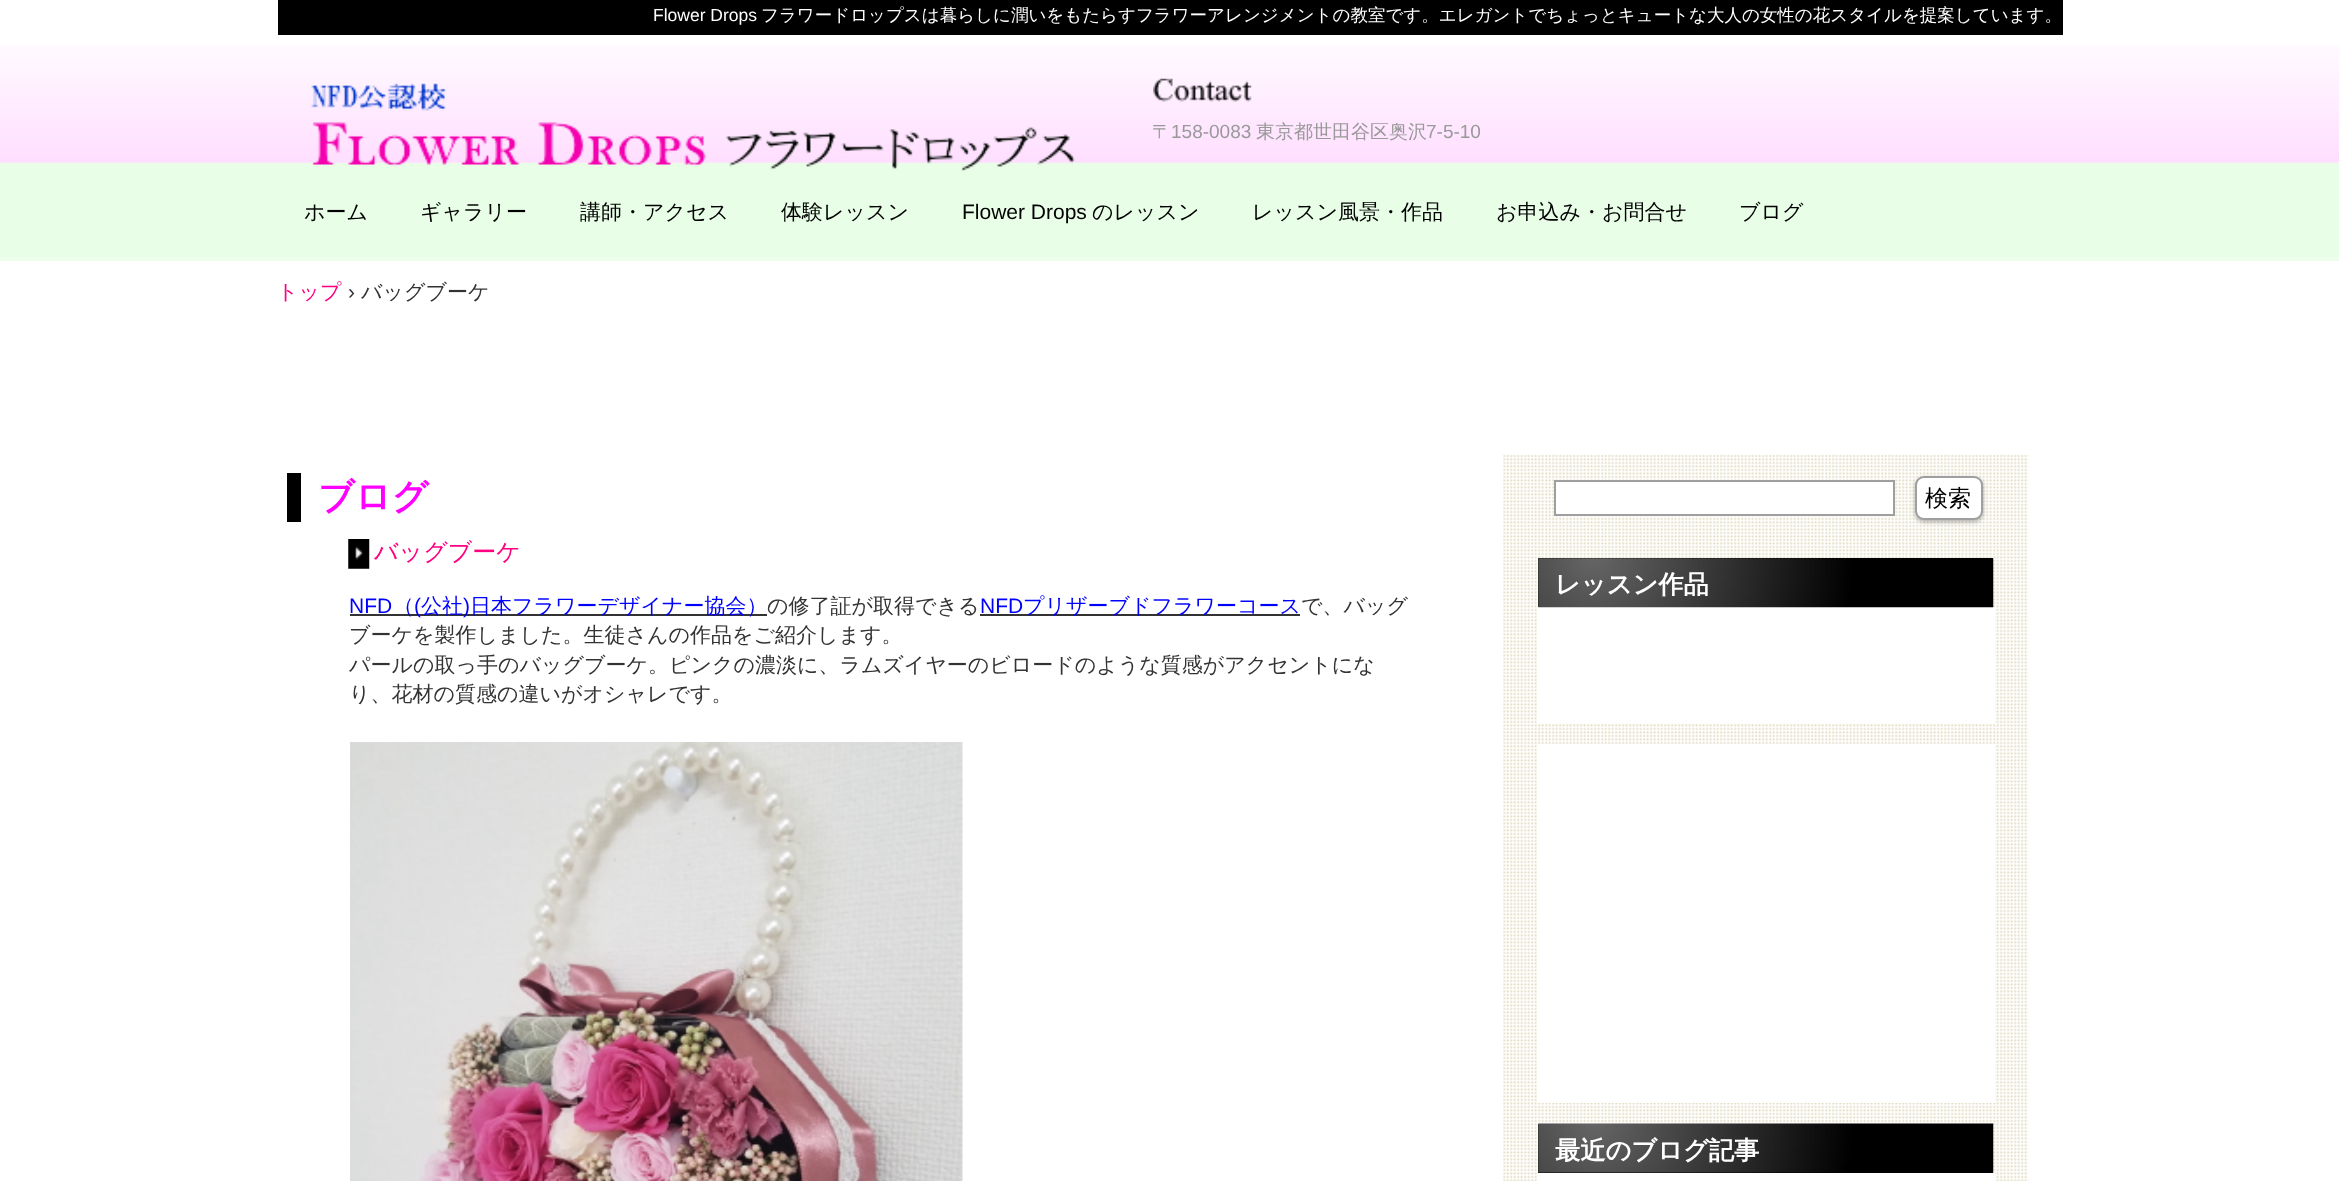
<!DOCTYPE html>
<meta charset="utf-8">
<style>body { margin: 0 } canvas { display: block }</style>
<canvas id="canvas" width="2339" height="1181"></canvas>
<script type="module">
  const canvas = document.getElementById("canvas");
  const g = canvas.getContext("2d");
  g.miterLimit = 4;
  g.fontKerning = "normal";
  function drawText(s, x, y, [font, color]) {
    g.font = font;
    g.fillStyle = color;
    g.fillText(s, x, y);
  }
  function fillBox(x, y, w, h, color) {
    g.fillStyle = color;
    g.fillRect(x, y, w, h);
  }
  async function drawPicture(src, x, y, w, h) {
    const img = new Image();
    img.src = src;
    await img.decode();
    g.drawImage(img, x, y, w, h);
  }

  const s1 = ["17.5px Liberation Sans", "#FFFFFF"];
  const s2 = ["500 17.5px WenQuanYi Zen Hei", "#FFFFFF"];
  const s3 = ["500 19px WenQuanYi Zen Hei", "#999999"];
  const s4 = ["19px Liberation Sans", "#999999"];
  const s5 = ["500 21px WenQuanYi Zen Hei", "#000000"];
  const s6 = ["21px Liberation Sans", "#000000"];
  const s7 = ["500 21px WenQuanYi Zen Hei", "#FF0080"];
  const s8 = ["21px Liberation Sans", "#333333"];
  const s9 = ["500 21px WenQuanYi Zen Hei", "#333333"];
  const s10 = ["bold 36px WenQuanYi Zen Hei", "#FF00FF"];
  const s11 = ["500 24px WenQuanYi Zen Hei", "#FF0080"];
  const s12 = ["21px Liberation Sans", "#0000FF"];
  const s13 = ["500 21px WenQuanYi Zen Hei", "#0000FF"];
  const s14 = ["500 23px WenQuanYi Zen Hei", "#000000"];
  const s15 = ["bold 25.25px WenQuanYi Zen Hei", "#FFFFFF"];

  fillBox(0, 0, 2339, 1181, "#FFFFFF");
  await drawPicture("pic1.png", 0, 46, 2339, 118);
  fillBox(278, 0, 1785, 35, "#000000");
  drawText("Flower Drops", 653, 21, s1);
  drawText("フラワードロップスは暮らしに潤いをもたらすフラワーアレンジメントの教室です。エレガントでちょっとキュートな大人の女性の花スタイルを提案しています。", 761, 21, s2);
  await drawPicture("pic4.png", 0, 162, 2339, 99);
  await drawPicture("pic2.png", 311, 83, 764, 89);
  await drawPicture("pic3.png", 1153, 78, 99, 24);
  drawText("〒", 1152, 138, s3);
  drawText("158-0083", 1171, 138, s4);
  drawText("東京都世田谷区奥沢", 1256, 138, s3);
  drawText("7-5-10", 1426, 138, s4);
  drawText("ホーム", 304, 219, s5);
  drawText("ギャラリー", 420, 219, s5);
  drawText("講師・アクセス", 580, 219, s5);
  drawText("体験レッスン", 781, 219, s5);
  drawText("Flower Drops", 962, 219, s6);
  drawText("のレッスン", 1092, 219, s5);
  drawText("レッスン風景・作品", 1252, 219, s5);
  drawText("お申込み・お問合せ", 1496, 219, s5);
  drawText("ブログ", 1739, 219, s5);
  drawText("トップ", 277, 299, s7);
  drawText("›", 348, 299, s8);
  drawText("バッグブーケ", 361, 299, s9);
  fillBox(287, 473, 14, 49, "#000000");
  drawText("ブログ", 318, 509, s10);
  await drawPicture("pic5.png", 348, 539, 22, 30);
  drawText("バッグブーケ", 374, 560, s11);
  drawText("NFD", 349, 613, s12);
  fillBox(350, 614, 417, 2, "#333333");
  drawText("（", 393, 613, s13);
  drawText("(", 414, 613, s12);
  drawText("公社", 421, 613, s13);
  drawText(")", 463, 613, s12);
  drawText("日本フラワーデザイナー協会）", 470, 613, s13);
  drawText("の修了証が取得できる", 767, 613, s9);
  drawText("NFD", 980, 613, s12);
  fillBox(980, 614, 320, 2, "#333333");
  drawText("プリザーブドフラワーコース", 1023, 613, s13);
  drawText("で、バッグ", 1301, 613, s9);
  drawText("ブーケを製作しました。生徒さんの作品をご紹介します。", 349, 642, s9);
  drawText("パールの取っ手のバッグブーケ。ピンクの濃淡に、ラムズイヤーのビロードのような質感がアクセントにな", 349, 672, s9);
  drawText("り、花材の質感の違いがオシャレです。", 349, 701, s9);
  await drawPicture("pic6.png", 350, 742, 613, 439);
  await drawPicture("pic7.png", 1503, 455, 526, 726);
  g.fillStyle = "#FFFFFF";
  g.beginPath();
  g.rect(1555, 481, 339, 34);
  g.fill();
  g.strokeStyle = "#9F9F9F";
  g.lineWidth = 2;
  g.stroke();
  g.fillStyle = "rgba(0, 0, 0, 0.3)";
  g.filter = "blur(2px)";
  g.beginPath();
  g.roundRect(1915, 478, 68, 44, 9);
  g.fill();
  g.filter = "none";
  g.fillStyle = "#FFFFFF";
  g.beginPath();
  g.roundRect(1916, 477, 66, 42, 8);
  g.fill();
  g.stroke();
  drawText("検索", 1925, 506, s14);
  fillBox(1538, 558, 455, 49, "#000000");
  fillBox(1537, 607, 458, 116, "#FFFFFF");
  await drawPicture("pic8.png", 1538, 558, 456, 50);
  drawText("レッスン作品", 1555, 593, s15);
  fillBox(1537, 744, 458, 359, "#FFFFFF");
  fillBox(1538, 1124, 455, 49, "#000000");
  await drawPicture("pic9.png", 1538, 1123, 456, 50);
  drawText("最近のブログ記事", 1555, 1159, s15);
  fillBox(1537, 1173, 458, 8, "#FFFFFF");
</script>
